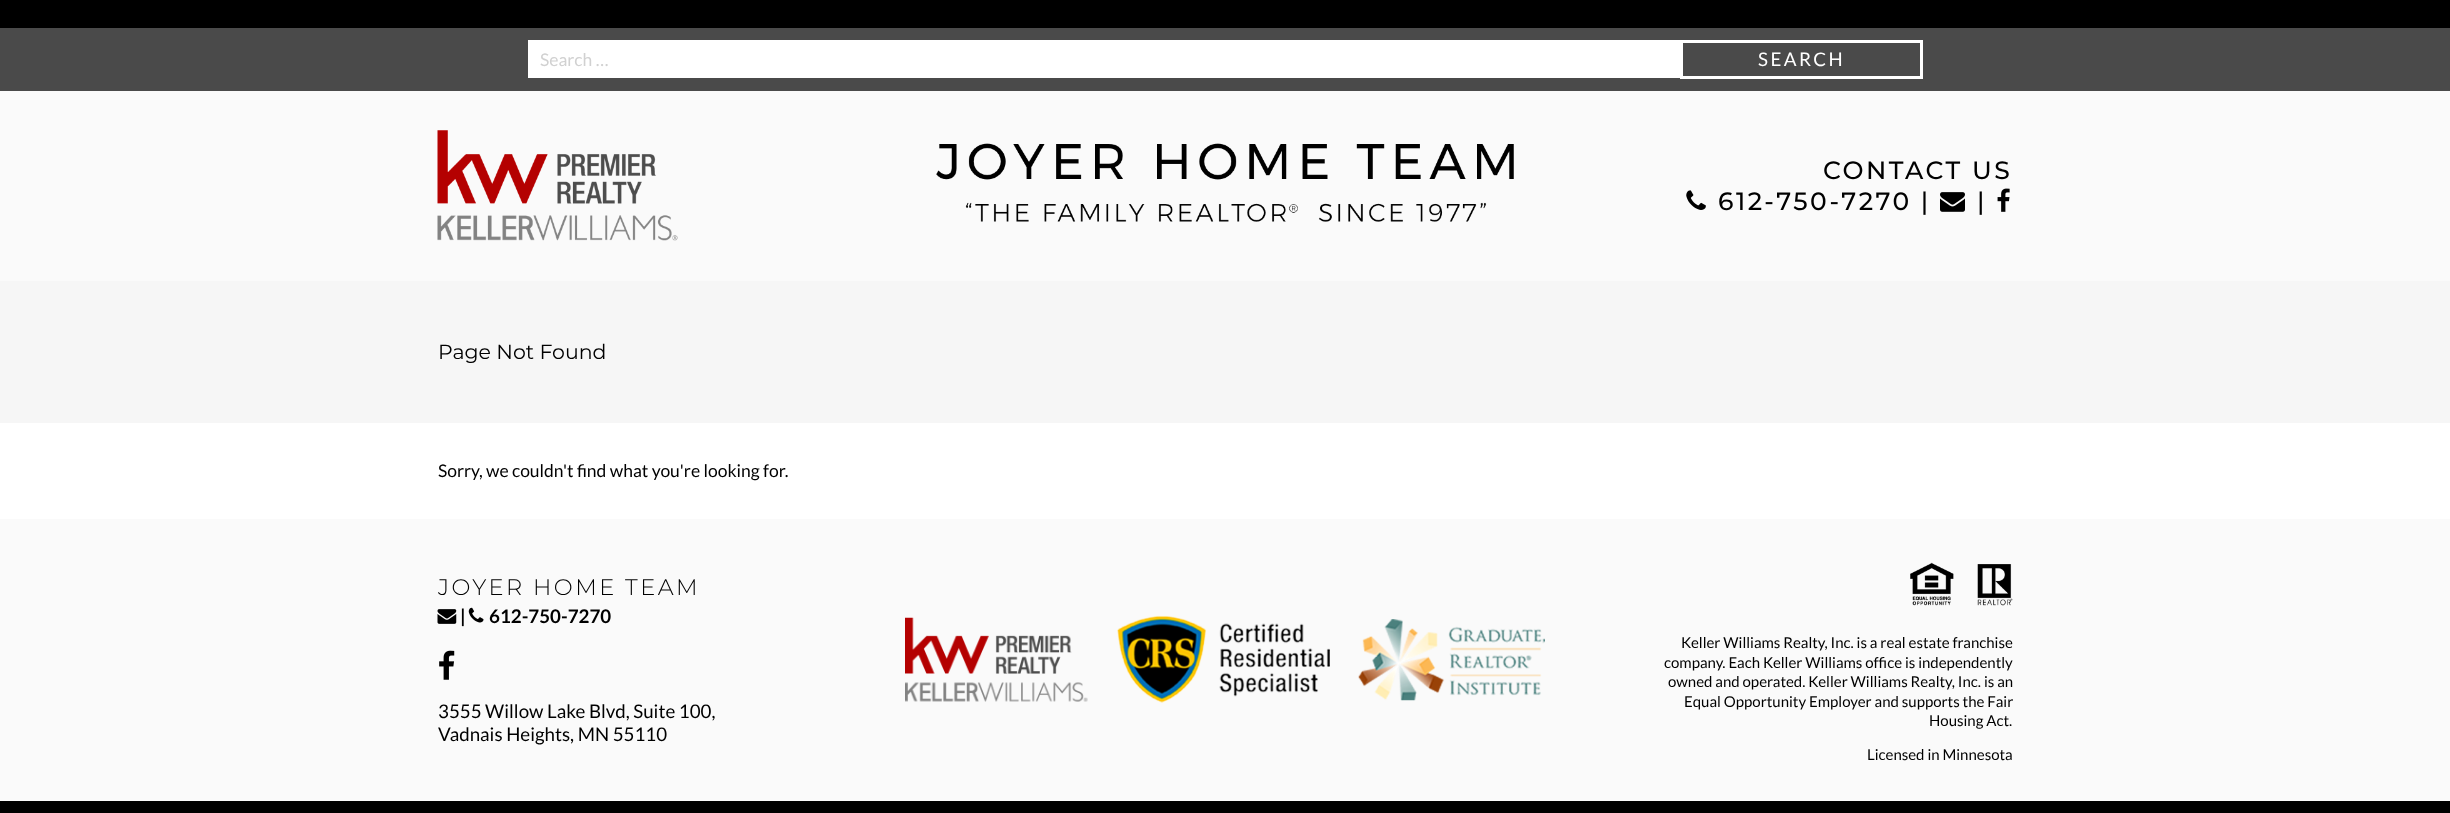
<!DOCTYPE html>
<meta charset="utf-8">
<style>body { margin: 0 } canvas { display: block }</style>
<canvas id="canvas" width="2450" height="813"></canvas>
<script type="module">
  const canvas = document.getElementById("canvas");
  const g = canvas.getContext("2d");
  g.miterLimit = 4;
  g.fontKerning = "normal";
  function drawText(s, x, y, [font, color]) {
    g.font = font;
    g.fillStyle = color;
    g.fillText(s, x, y);
  }
  function fillBox(x, y, w, h, color) {
    g.fillStyle = color;
    g.fillRect(x, y, w, h);
  }
  async function drawPicture(src, x, y, w, h) {
    const img = new Image();
    img.src = src;
    await img.decode();
    g.drawImage(img, x, y, w, h);
  }

  const s1 = ["17.5px Lato", "#D1D1D1"];
  const s2 = ["18.75px Lato", "#FFFFFF"];
  const s3 = ["500 25px Montserrat", "#000000"];
  const s4 = ["20.5px Montserrat", "#000000"];
  const s5 = ["17.5px Lato", "#000000"];
  const s6 = ["300 22.5px Montserrat", "#000000"];
  const s7 = ["bold 18.75px Lato", "#000000"];
  const s8 = ["18.75px Lato", "#000000"];
  const s9 = ["15px Lato", "#000000"];

  fillBox(0, 0, 2450, 813, "#FFFFFF");
  fillBox(0, 0, 2450, 28, "#000000");
  fillBox(0, 28, 2450, 63, "#4A4A4A");
  fillBox(528, 40, 1152, 38, "#FFFFFF");
  drawText("Search …", 540, 66, s1);
  g.strokeStyle = "#FFFFFF";
  g.lineWidth = 3;
  g.strokeRect(1681.5, 41.5, 240, 36);
  g.letterSpacing = "2.5px";
  drawText("SEARCH", 1758, 66, s2);
  fillBox(0, 91, 2450, 190, "#FAFAFA");
  await drawPicture("pic1.png", 437, 130, 241, 111);
  await drawPicture("pic2.png", 936, 143, 578, 79);
  drawText("CONTACT US", 1823, 179, s3);
  await drawPicture("pic3.png", 1686, 190, 20, 20);
  drawText("612-750-7270 |", 1718, 210, s3);
  await drawPicture("pic4.png", 1940, 192, 25, 20);
  drawText("|", 1977, 210, s3);
  await drawPicture("pic5.png", 1997, 188, 13, 24);
  fillBox(0, 281, 2450, 142, "#F6F6F6");
  g.letterSpacing = "0px";
  drawText("Page Not Found", 438, 359, s4);
  drawText("Sorry, we couldn't find what you're looking for.", 438, 477, s5);
  fillBox(0, 519, 2450, 282, "#FAFAFA");
  g.letterSpacing = "2.5px";
  drawText("JOYER HOME TEAM", 438, 595, s6);
  await drawPicture("pic6.png", 437, 609, 20, 15);
  g.letterSpacing = "0px";
  drawText("|", 460, 623, s7);
  await drawPicture("pic7.png", 468, 607, 16, 16);
  drawText("612-750-7270", 489, 623, s7);
  await drawPicture("pic8.png", 439, 650, 16, 30);
  drawText("3555 Willow Lake Blvd, Suite 100,", 438, 718, s8);
  drawText("Vadnais Heights, MN 55110", 438, 741, s8);
  await drawPicture("pic9.png", 905, 617, 183, 85);
  await drawPicture("pic10.png", 1117, 615, 213, 88);
  await drawPicture("pic11.png", 1358, 619, 187, 82);
  await drawPicture("pic12.png", 1910, 562, 44, 44);
  await drawPicture("pic13.png", 1977, 564, 36, 42);
  drawText("Keller Williams Realty, Inc. is a real estate franchise", 1681, 648, s9);
  drawText("company. Each Keller Williams office is independently", 1664, 668, s9);
  drawText("owned and operated. Keller Williams Realty, Inc. is an", 1668, 687, s9);
  drawText("Equal Opportunity Employer and supports the Fair", 1684, 707, s9);
  drawText("Housing Act.", 1929, 726, s9);
  drawText("Licensed in Minnesota", 1867, 760, s9);
  fillBox(0, 801, 2450, 12, "#000000");
</script>
